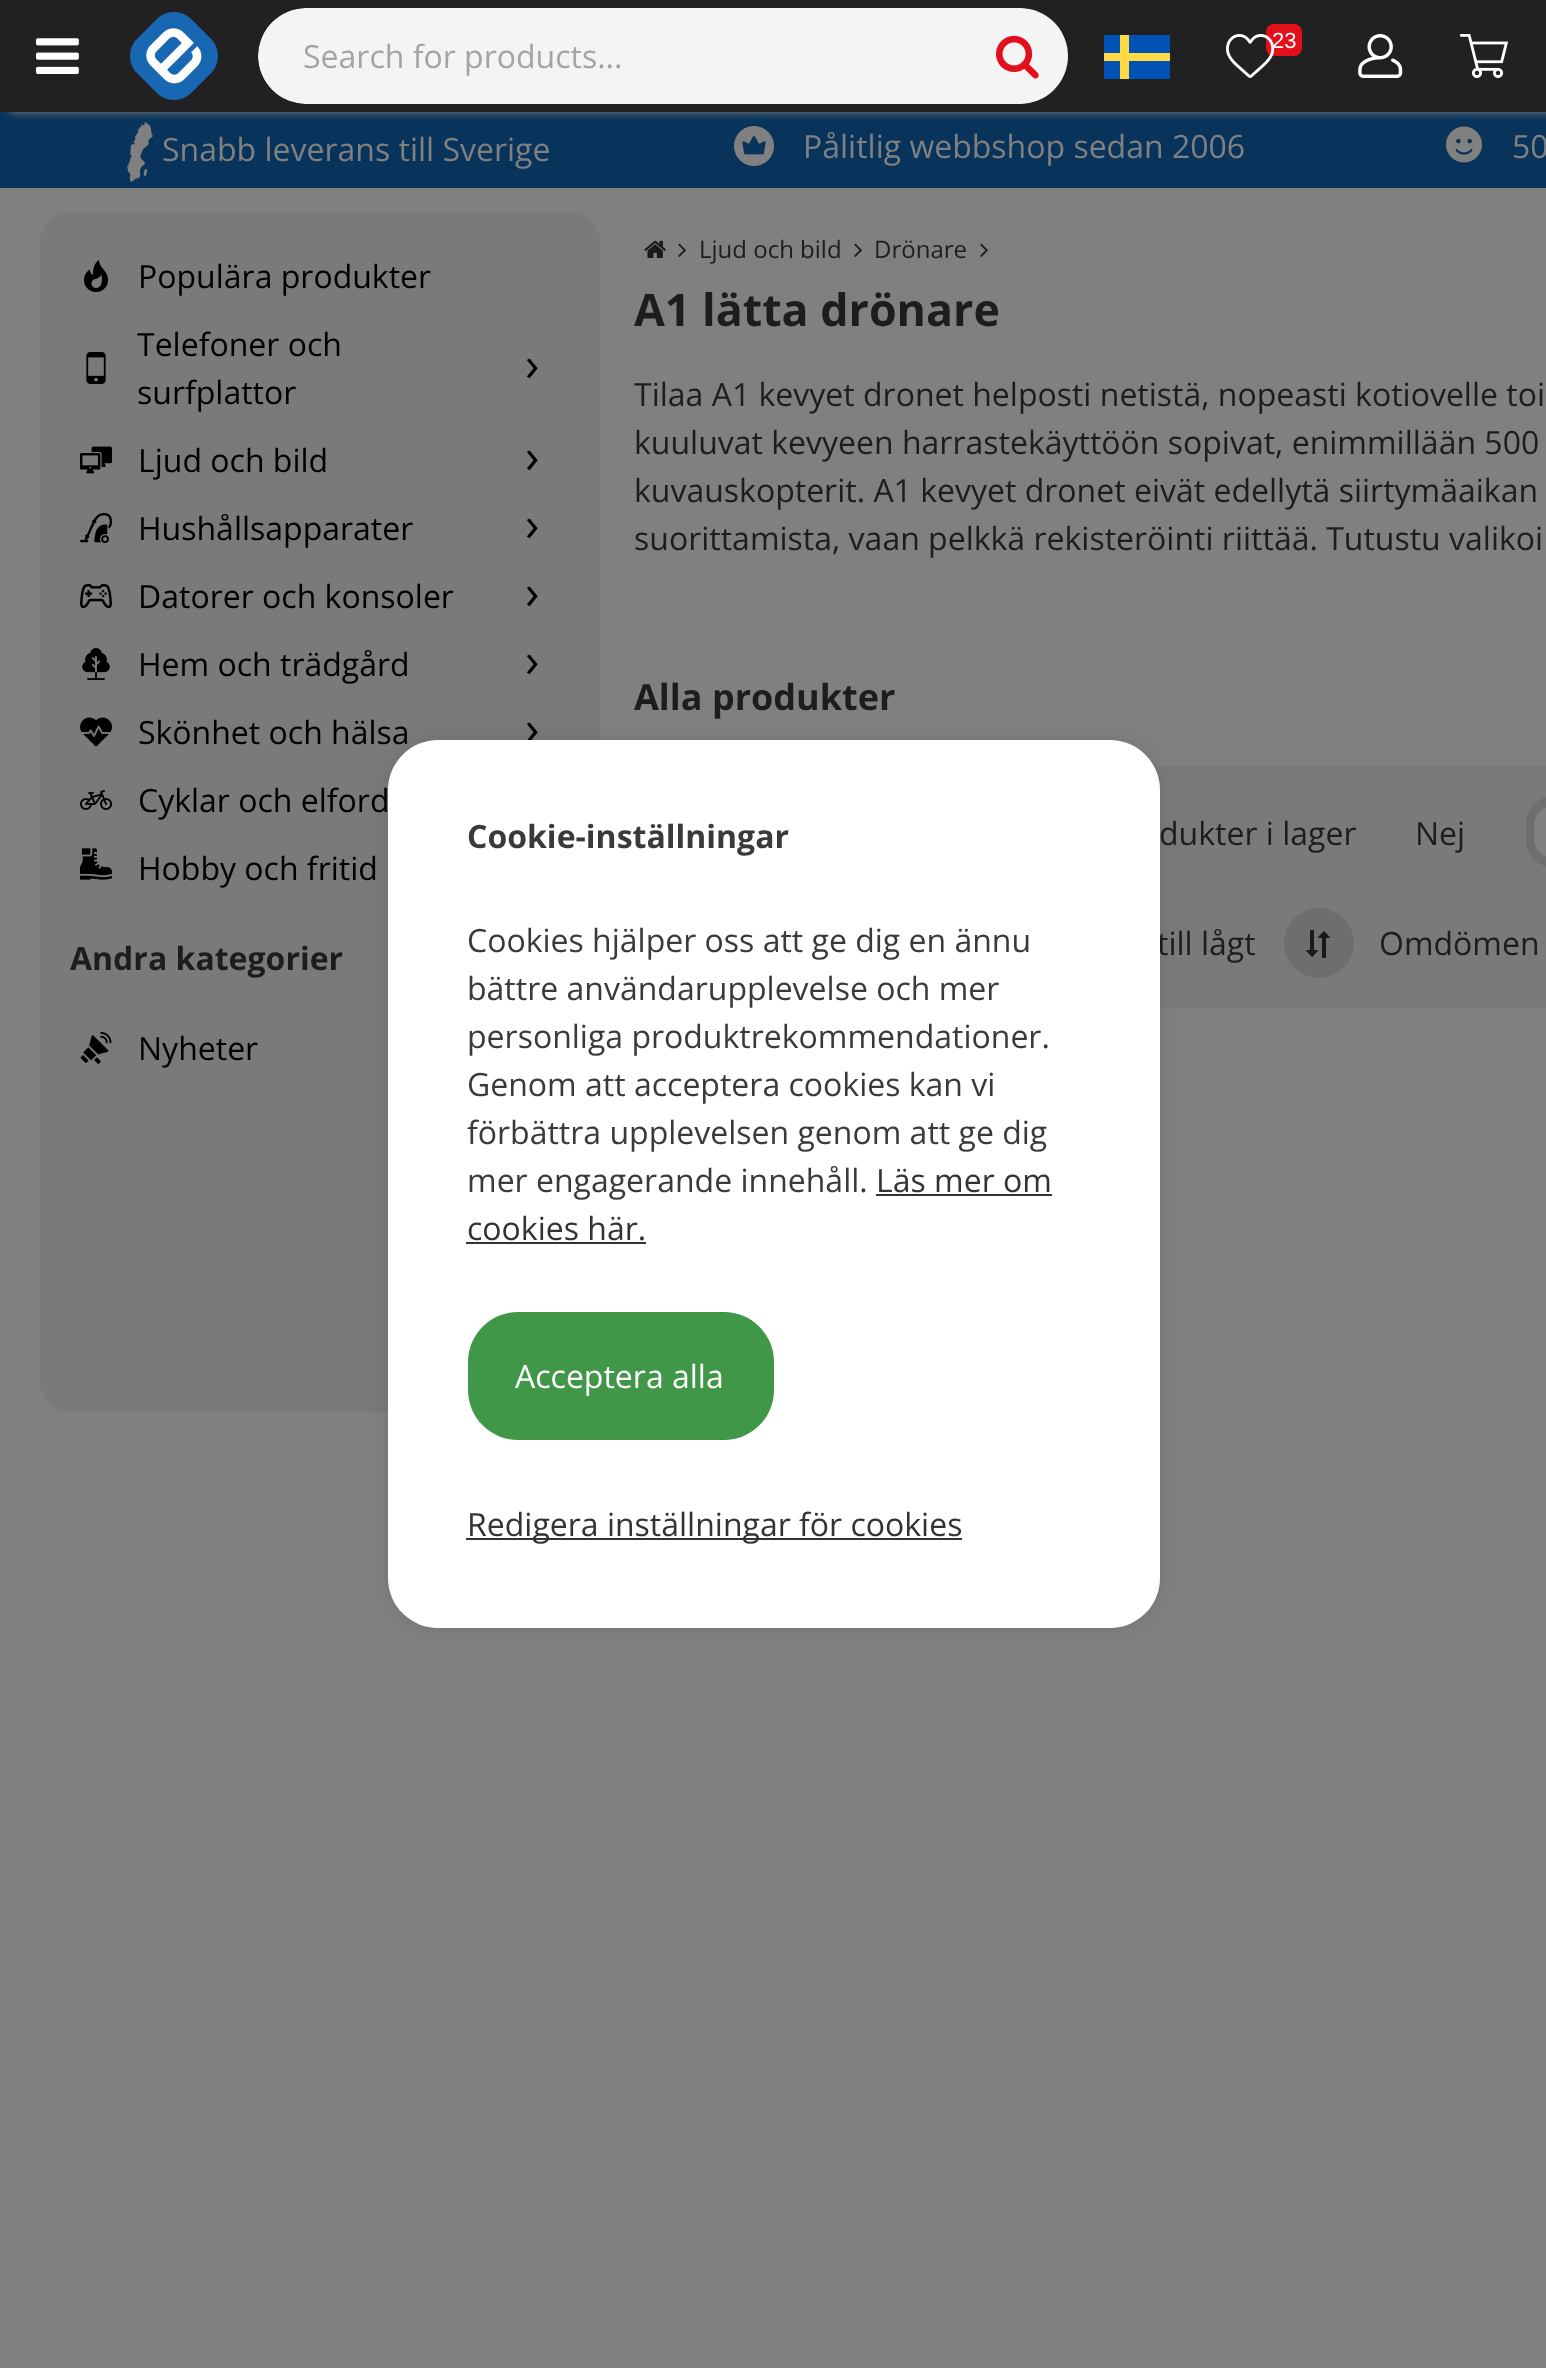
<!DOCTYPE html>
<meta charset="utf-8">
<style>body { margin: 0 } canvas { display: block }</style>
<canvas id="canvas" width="1546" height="2368"></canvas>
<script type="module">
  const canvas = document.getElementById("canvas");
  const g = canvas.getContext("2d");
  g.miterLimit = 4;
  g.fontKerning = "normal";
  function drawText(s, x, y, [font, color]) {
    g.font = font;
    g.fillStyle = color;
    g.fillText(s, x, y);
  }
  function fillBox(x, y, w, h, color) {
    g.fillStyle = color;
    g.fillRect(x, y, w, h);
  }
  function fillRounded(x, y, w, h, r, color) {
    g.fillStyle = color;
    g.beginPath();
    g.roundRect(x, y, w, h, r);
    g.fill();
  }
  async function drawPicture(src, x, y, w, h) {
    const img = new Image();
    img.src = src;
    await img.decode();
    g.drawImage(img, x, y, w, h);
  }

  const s1 = ["32px Open Sans", "#A4A4A4"];
  const s2 = ["22px Liberation Sans", "#FFFFFF"];
  const s3 = ["32px Open Sans", "#808080"];
  const s4 = ["32px Open Sans", "#000000"];
  const s5 = ["48px Open Sans", "#000000"];
  const s6 = ["bold 32px Open Sans", "#1D1D1D"];
  const s7 = ["24px Open Sans", "#1D1D1D"];
  const s8 = ["bold 44.75px Open Sans", "#1D1D1D"];
  const s9 = ["32px Open Sans", "#1D1D1D"];
  const s10 = ["bold 36px Open Sans", "#1D1D1D"];
  const s11 = ["bold 32px Open Sans", "#3A3A3A"];
  const s12 = ["32px Open Sans", "#3A3A3A"];
  const s13 = ["32px Open Sans", "#333333"];
  const s14 = ["32px Open Sans", "#FFFFFF"];

  fillBox(0, 0, 1546, 2368, "#808080");
  fillBox(0, 112, 1546, 76, "#08335B");
  await drawPicture("pic7.png", 127, 122, 26, 60);
  await drawPicture("pic8.png", 734, 126, 40, 40);
  await drawPicture("pic9.png", 1446, 126, 36, 37);
  g.fillStyle = "#888888";
  g.filter = "blur(5px)";
  g.beginPath();
  g.rect(10, 0, 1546, 112);
  g.fill();
  g.filter = "none";
  fillBox(0, 0, 1546, 112, "#212121");
  await drawPicture("pic1.png", 36, 38, 43, 36);
  await drawPicture("pic2.png", 130, 12, 88, 88);
  g.save();
  g.beginPath();
  g.roundRect(258, 8, 810, 96, 48);
  g.clip();
  fillRounded(258, 8, 812, 96, 48, "#F4F4F4");
  g.restore();
  drawText("Search for products...", 303, 68, s1);
  await drawPicture("pic3.png", 996, 35, 43, 44);
  fillBox(1104, 35, 66, 44, "#0052B4");
  g.fillStyle = "#FFDA44";
  g.beginPath();
  g.moveTo(1129, 35);
  g.lineTo(1120, 35);
  g.lineTo(1120, 53);
  g.lineTo(1104, 53);
  g.lineTo(1104, 61);
  g.lineTo(1120, 61);
  g.lineTo(1120, 79);
  g.lineTo(1129, 79);
  g.lineTo(1129, 61);
  g.lineTo(1170, 61);
  g.lineTo(1170, 53);
  g.lineTo(1129, 53);
  g.closePath();
  g.fill();
  fillRounded(1266, 24, 36, 32, 8, "#E3101B");
  drawText("23", 1272, 48, s2);
  await drawPicture("pic4.png", 1226, 34, 49, 44);
  await drawPicture("pic5.png", 1358, 34, 45, 44);
  await drawPicture("pic6.png", 1460, 34, 49, 44);
  drawText("Snabb leverans till Sverige", 162, 161, s3);
  drawText("Pålitlig webbshop sedan 2006", 803, 158, s3);
  drawText("50", 1512, 158, s3);
  fillRounded(40, 212, 560, 1200, 30, "#7A7A7A");
  await drawPicture("pic10.png", 84, 260, 24, 32);
  drawText("Populära produkter", 138, 288, s4);
  drawText("Telefoner och", 137, 356, s4);
  await drawPicture("pic11.png", 86, 352, 20, 32);
  drawText("surfplattor", 137, 404, s4);
  drawText("›", 525, 381, s5);
  await drawPicture("pic12.png", 80, 446, 32, 28);
  drawText("Ljud och bild", 138, 472, s4);
  drawText("›", 525, 473, s5);
  await drawPicture("pic13.png", 80, 512, 32, 31);
  drawText("Hushållsapparater", 138, 540, s4);
  drawText("›", 525, 541, s5);
  await drawPicture("pic14.png", 80, 583, 32, 26);
  drawText("Datorer och konsoler", 138, 608, s4);
  drawText("›", 525, 609, s5);
  await drawPicture("pic15.png", 82, 648, 28, 32);
  drawText("Hem och trädgård", 138, 676, s4);
  drawText("›", 525, 677, s5);
  await drawPicture("pic16.png", 80, 717, 32, 30);
  drawText("Skönhet och hälsa", 138, 744, s4);
  drawText("›", 525, 745, s5);
  await drawPicture("pic17.png", 80, 790, 32, 20);
  drawText("Cyklar och elford", 138, 812, s4);
  await drawPicture("pic18.png", 80, 848, 32, 32);
  drawText("Hobby och fritid", 138, 880, s4);
  drawText("Andra kategorier", 70, 970, s6);
  await drawPicture("pic19.png", 80, 1032, 32, 32);
  drawText("Nyheter", 138, 1060, s4);
  await drawPicture("pic20.png", 644, 240, 22, 18);
  await drawPicture("pic21.png", 678, 243, 8, 14);
  drawText("Ljud och bild", 699, 258, s7);
  await drawPicture("pic21.png", 854, 243, 8, 14);
  drawText("Drönare", 874, 258, s7);
  await drawPicture("pic21.png", 980, 243, 8, 14);
  drawText("A1 lätta drönare", 634, 326, s8);
  drawText("Tilaa A1 kevyet dronet helposti netistä, nopeasti kotiovelle toi", 634, 406, s9);
  drawText("kuuluvat kevyeen harrastekäyttöön sopivat, enimmillään 500", 634, 454, s9);
  drawText("kuvauskopterit. A1 kevyet dronet eivät edellytä siirtymäaikan", 634, 502, s9);
  drawText("suorittamista, vaan pelkkä rekisteröinti riittää. Tutustu valikoi", 634, 550, s9);
  drawText("Alla produkter", 634, 710, s10);
  fillBox(1153, 766, 393, 242, "#7A7A7A");
  drawText("dukter i lager", 1159, 845, s9);
  fillRounded(1526, 796, 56, 72, 36, "#6E6E6E");
  drawText("Nej", 1415, 845, s9);
  fillRounded(1534, 806, 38, 52, 26, "#808080");
  drawText("till lågt", 1157, 955, s9);
  g.fillStyle = "#6E6E6E";
  g.beginPath();
  g.arc(1319, 943, 35, 0, Math.PI * 2);
  g.fill();
  await drawPicture("pic22.png", 1306, 930, 12, 27);
  await drawPicture("pic23.png", 1318, 931, 12, 27);
  drawText("Omdömen", 1379, 955, s9);
  g.fillStyle = "rgba(0, 0, 0, 0.1)";
  g.filter = "blur(10px)";
  g.beginPath();
  g.roundRect(388, 740, 772, 888, 50);
  g.fill();
  g.filter = "none";
  fillRounded(388, 740, 772, 888, 50, "#FFFFFF");
  drawText("Cookie-inställningar", 467, 848, s11);
  drawText("Cookies hjälper oss att ge dig en ännu", 467, 952, s12);
  drawText("bättre användarupplevelse och mer", 467, 1000, s12);
  drawText("personliga produktrekommendationer.", 467, 1048, s12);
  drawText("Genom att acceptera cookies kan vi", 467, 1096, s12);
  drawText("förbättra upplevelsen genom att ge dig", 467, 1144, s12);
  drawText("mer engagerande innehåll.", 467, 1192, s12);
  drawText("Läs mer om", 876, 1192, s13);
  fillBox(876, 1194, 176, 2, "#333333");
  drawText("cookies här.", 467, 1240, s13);
  fillBox(466, 1242, 180, 2, "#333333");
  fillRounded(468, 1312, 306, 128, 50, "#409748");
  drawText("Acceptera alla", 515, 1388, s14);
  fillBox(466, 1538, 496, 2, "#333333");
  drawText("Redigera inställningar för cookies", 467, 1536, s13);
</script>
